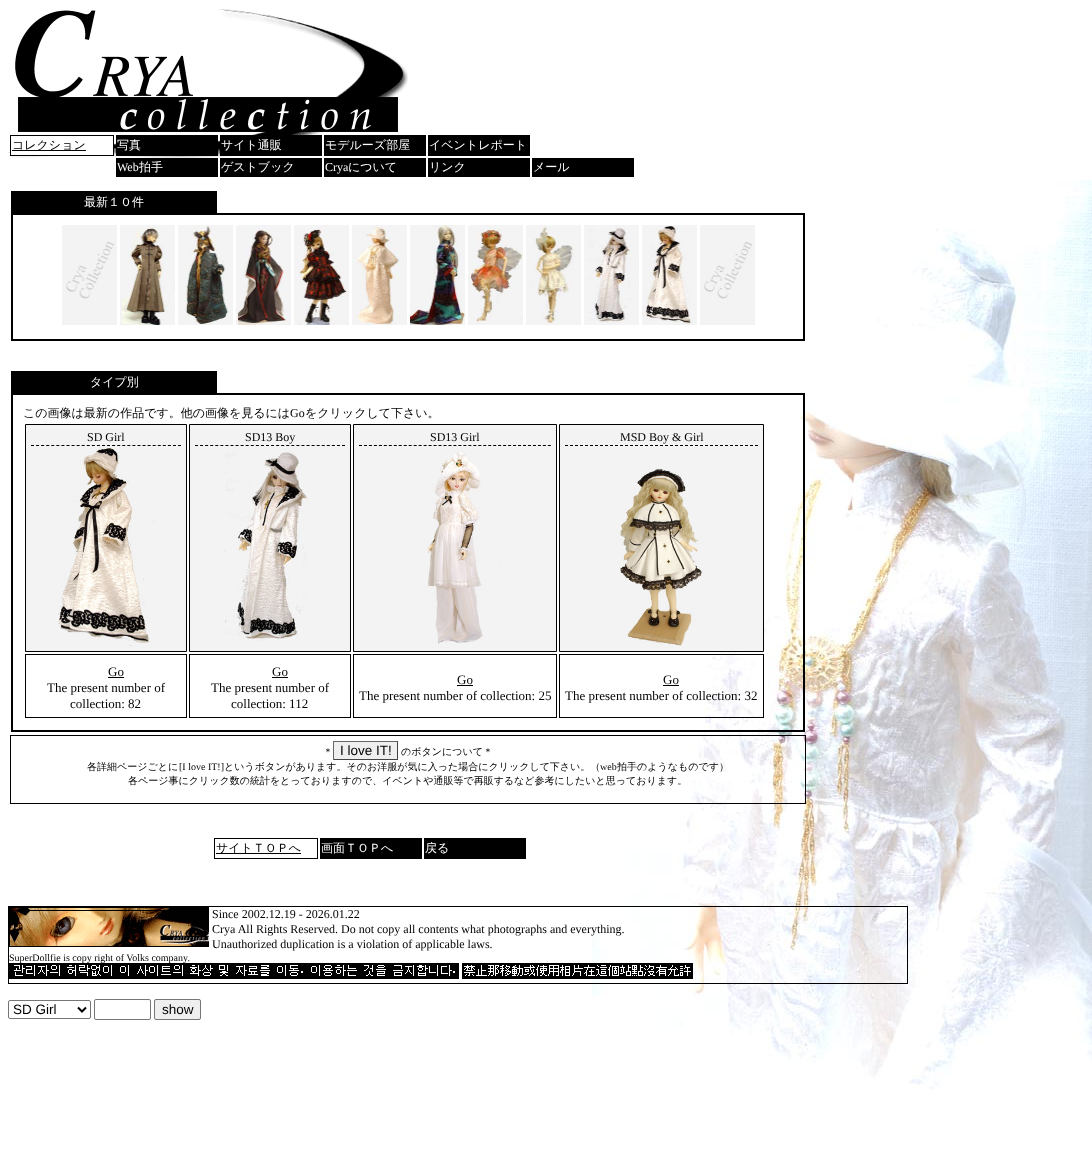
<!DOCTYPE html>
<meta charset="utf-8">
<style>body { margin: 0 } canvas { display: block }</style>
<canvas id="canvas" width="1092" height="1151"></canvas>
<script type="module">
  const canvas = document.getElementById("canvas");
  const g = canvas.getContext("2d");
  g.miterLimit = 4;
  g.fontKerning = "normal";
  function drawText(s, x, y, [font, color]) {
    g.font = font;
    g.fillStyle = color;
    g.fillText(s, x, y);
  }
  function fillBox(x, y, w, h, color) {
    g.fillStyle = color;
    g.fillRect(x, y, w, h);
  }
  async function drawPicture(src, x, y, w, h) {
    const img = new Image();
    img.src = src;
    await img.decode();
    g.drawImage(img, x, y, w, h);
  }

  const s1 = ["500 12px WenQuanYi Zen Hei", "#000000"];
  const s2 = ["500 12px WenQuanYi Zen Hei", "#FFFFFF"];
  const s3 = ["12px Liberation Serif", "#FFFFFF"];
  const s4 = ["12px Liberation Serif", "#000000"];
  const s5 = ["13px Liberation Serif", "#000000"];
  const s6 = ["500 10px WenQuanYi Zen Hei", "#000000"];
  const s7 = ["13.5px Liberation Sans", "#000000"];
  const s8 = ["10px Liberation Serif", "#000000"];

  fillBox(0, 0, 1092, 1151, "#FFFFFF");
  await drawPicture("pic1.png", 592, 180, 500, 910);
  await drawPicture("pic2.png", 15, 9, 393, 124);
  await drawPicture("pic3.png", 8, 133, 312, 25);
  fillBox(11, 143, 102, 12, "#FFFFFF");
  g.strokeStyle = "#000000";
  g.strokeRect(10.5, 135.5, 103, 20);
  fillBox(12, 150, 74, 1, "#000000");
  drawText("コレクション", 12, 149, s1);
  fillBox(116, 135, 102, 21, "#000000");
  drawText("写真", 117, 149, s2);
  fillBox(220, 135, 102, 21, "#000000");
  drawText("サイト通販", 221, 149, s2);
  fillBox(324, 135, 102, 21, "#000000");
  drawText("モデルーズ部屋", 325, 149, s2);
  fillBox(428, 135, 102, 21, "#000000");
  drawText("イベントレポート", 429, 149, s2);
  fillBox(116, 158, 102, 19, "#000000");
  drawText("Web", 117, 171, s3);
  drawText("拍手", 139, 171, s2);
  fillBox(220, 158, 102, 19, "#000000");
  drawText("ゲストブック", 221, 171, s2);
  fillBox(324, 158, 102, 19, "#000000");
  drawText("Crya", 325, 171, s3);
  drawText("について", 348, 171, s2);
  fillBox(428, 158, 102, 19, "#000000");
  drawText("リンク", 429, 171, s2);
  fillBox(532, 158, 102, 19, "#000000");
  drawText("メール", 533, 171, s2);
  fillBox(12, 192, 204, 21, "#000000");
  fillBox(11, 191, 206, 1, "#000000");
  fillBox(216, 191, 1, 22, "#000000");
  fillBox(11, 191, 1, 22, "#000000");
  drawText("最新１０件", 84, 206, s2);
  g.lineWidth = 2;
  g.strokeRect(12, 214, 792, 126);
  await drawPicture("pic4.png", 62, 225, 55, 100);
  await drawPicture("pic5.png", 120, 225, 55, 100);
  await drawPicture("pic6.png", 178, 225, 55, 100);
  await drawPicture("pic7.png", 236, 225, 55, 100);
  await drawPicture("pic8.png", 294, 225, 55, 100);
  await drawPicture("pic9.png", 352, 225, 55, 100);
  await drawPicture("pic10.png", 410, 225, 55, 100);
  await drawPicture("pic11.png", 468, 225, 55, 100);
  await drawPicture("pic12.png", 526, 225, 55, 100);
  await drawPicture("pic13.png", 584, 225, 55, 100);
  await drawPicture("pic14.png", 642, 225, 55, 100);
  await drawPicture("pic15.png", 700, 225, 55, 100);
  fillBox(12, 372, 204, 21, "#000000");
  fillBox(11, 371, 206, 1, "#000000");
  fillBox(216, 371, 1, 22, "#000000");
  fillBox(11, 371, 1, 22, "#000000");
  drawText("タイプ別", 90, 386, s2);
  g.strokeRect(12, 394, 792, 337);
  drawText("この画像は最新の作品です。他の画像を見るには", 23, 417, s1);
  drawText("Go", 290, 417, s4);
  drawText("をクリックして下さい。", 305, 417, s1);
  g.fillStyle = "#F3F3F3";
  g.beginPath();
  g.rect(25.5, 424.5, 161, 227);
  g.fill();
  g.lineWidth = 1;
  g.stroke();
  g.beginPath();
  g.moveTo(31, 445.5);
  g.lineTo(181, 445.5);
  g.setLineDash([3, 2.07]);
  g.stroke();
  drawText("SD Girl", 87, 441, s4);
  await drawPicture("pic16.png", 58, 446, 97, 200);
  g.fillStyle = "#F3F3F3";
  g.beginPath();
  g.rect(189.5, 424.5, 161, 227);
  g.fill();
  g.setLineDash([]);
  g.stroke();
  g.beginPath();
  g.moveTo(195, 445.5);
  g.lineTo(345, 445.5);
  g.setLineDash([3, 2.07]);
  g.stroke();
  drawText("SD13 Boy", 245, 441, s4);
  await drawPicture("pic17.png", 225, 451, 83, 190);
  g.fillStyle = "#F3F3F3";
  g.beginPath();
  g.rect(353.5, 424.5, 203, 227);
  g.fill();
  g.setLineDash([]);
  g.stroke();
  g.beginPath();
  g.moveTo(359, 445.5);
  g.lineTo(551, 445.5);
  g.setLineDash([3, 1.97]);
  g.stroke();
  drawText("SD13 Girl", 430, 441, s4);
  await drawPicture("pic18.png", 427, 451, 75, 193);
  g.fillStyle = "#F3F3F3";
  g.beginPath();
  g.rect(559.5, 424.5, 204, 227);
  g.fill();
  g.setLineDash([]);
  g.stroke();
  g.beginPath();
  g.moveTo(565, 445.5);
  g.lineTo(758, 445.5);
  g.setLineDash([3, 2]);
  g.stroke();
  drawText("MSD Boy & Girl", 620, 441, s4);
  await drawPicture("pic19.png", 619, 468, 85, 178);
  g.setLineDash([]);
  g.strokeRect(25.5, 654.5, 161, 63);
  drawText("Go", 108, 676, s5);
  fillBox(108, 677, 16, 1, "#000000");
  drawText("The present number of", 47, 692, s5);
  drawText("collection: 82", 70, 708, s5);
  g.strokeRect(189.5, 654.5, 161, 63);
  drawText("Go", 272, 676, s5);
  fillBox(272, 677, 16, 1, "#000000");
  drawText("The present number of", 211, 692, s5);
  drawText("collection: 112", 231, 708, s5);
  g.strokeRect(353.5, 654.5, 203, 63);
  drawText("Go", 457, 684, s5);
  fillBox(457, 685, 16, 1, "#000000");
  drawText("The present number of collection: 25", 359, 700, s5);
  g.strokeRect(559.5, 654.5, 204, 63);
  drawText("Go", 663, 684, s5);
  fillBox(663, 685, 16, 1, "#000000");
  drawText("The present number of collection: 32", 565, 700, s5);
  g.strokeRect(10.5, 735.5, 795, 68);
  drawText("＊", 323, 755, s6);
  fillBox(334, 742, 63, 17, "#EFEFEF");
  fillBox(333, 741, 65, 1, "#666666");
  fillBox(397, 741, 1, 19, "#444444");
  fillBox(333, 759, 65, 1, "#444444");
  fillBox(333, 741, 1, 19, "#666666");
  drawText("I love IT!", 340, 755, s7);
  drawText("のボタンについて＊", 401, 755, s6);
  drawText("各詳細ページごとに", 87, 770, s6);
  drawText("[I love IT!]", 179, 770, s8);
  drawText("というボタンがあります。そのお洋服が気に入った場合にクリックして下さい。（", 224, 770, s6);
  drawText("web", 600, 770, s8);
  drawText("拍手のようなものです）", 617, 770, s6);
  drawText("各ページ事にクリック数の統計をとっておりますので、イベントや通販等で再販するなど参考にしたいと思っております。", 128, 784, s6);
  g.strokeRect(214.5, 838.5, 103, 20);
  fillBox(216, 853, 85, 1, "#000000");
  drawText("サイトＴＯＰへ", 216, 852, s1);
  fillBox(320, 838, 102, 21, "#000000");
  drawText("画面ＴＯＰへ", 321, 852, s2);
  fillBox(424, 838, 102, 21, "#000000");
  drawText("戻る", 425, 852, s2);
  g.strokeRect(8.5, 906.5, 899, 77);
  await drawPicture("pic20.png", 9, 907, 200, 40);
  drawText("Since 2002.12.19 - 2026.01.22", 212, 918, s4);
  drawText("Crya All Rights Reserved. Do not copy all contents what photographs and everything.", 212, 933, s4);
  drawText("Unauthorized duplication is a violation of applicable laws.", 212, 948, s4);
  drawText("SuperDollfie is copy right of Volks company.", 9, 961, s8);
  await drawPicture("pic21.png", 9, 963, 450, 16);
  await drawPicture("pic22.png", 462, 963, 231, 16);
  g.beginPath();
  g.roundRect(8.5, 1000.5, 82, 18, 1.5);
  g.strokeStyle = "#767676";
  g.stroke();
  g.beginPath();
  g.moveTo(78, 1007.5);
  g.lineTo(82, 1011.5);
  g.lineTo(86, 1007.5);
  g.strokeStyle = "#000000";
  g.lineWidth = 2;
  g.stroke();
  drawText("SD Girl", 13, 1014, s7);
  g.beginPath();
  g.roundRect(94.5, 999.5, 56, 20, 1.5);
  g.strokeStyle = "#767676";
  g.lineWidth = 1;
  g.stroke();
  g.fillStyle = "#EFEFEF";
  g.beginPath();
  g.roundRect(154.5, 999.5, 46, 20, 1.5);
  g.fill();
  g.stroke();
  drawText("show", 162, 1014, s7);
</script>
